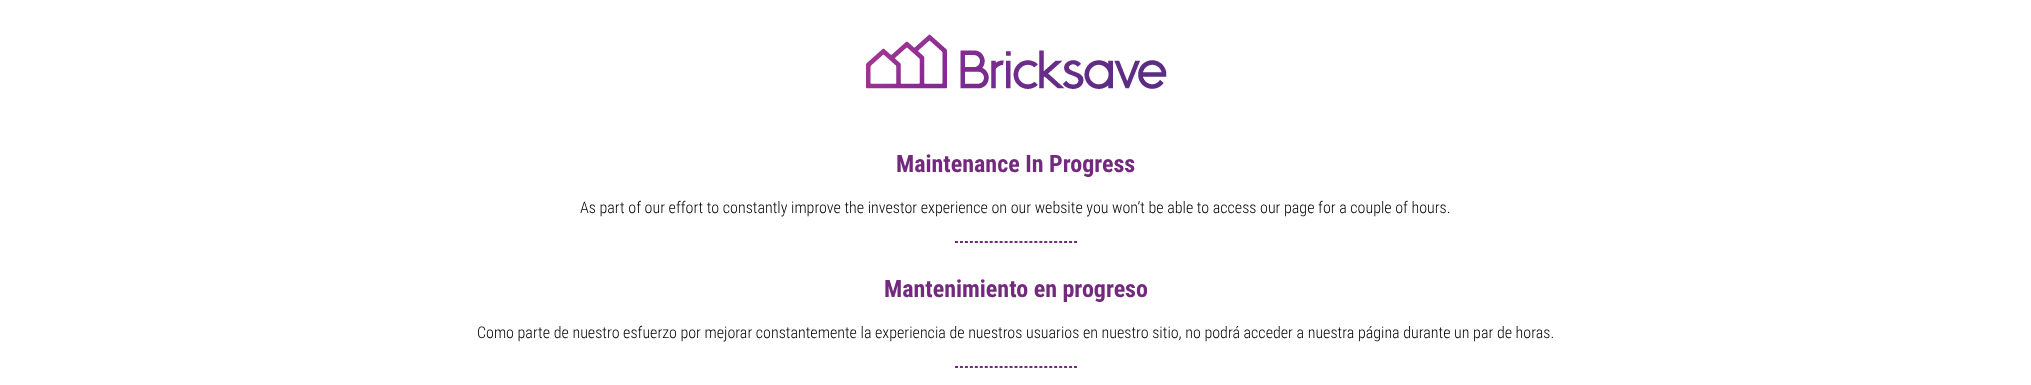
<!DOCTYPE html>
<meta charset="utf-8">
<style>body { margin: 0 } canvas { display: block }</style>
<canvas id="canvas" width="2031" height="385"></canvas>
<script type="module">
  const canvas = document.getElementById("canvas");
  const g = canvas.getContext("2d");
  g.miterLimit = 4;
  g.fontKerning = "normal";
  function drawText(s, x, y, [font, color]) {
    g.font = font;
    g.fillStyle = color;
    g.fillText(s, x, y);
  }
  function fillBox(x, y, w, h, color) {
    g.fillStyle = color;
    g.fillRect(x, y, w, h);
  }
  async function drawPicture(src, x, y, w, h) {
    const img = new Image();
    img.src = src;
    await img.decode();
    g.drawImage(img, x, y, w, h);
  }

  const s1 = ["bold 24px Roboto Condensed", "#73297E"];
  const s2 = ["300 16px Roboto Condensed", "#000000"];

  fillBox(0, 0, 2031, 385, "#FFFFFF");
  await drawPicture("pic1.png", 866, 34, 301, 55);
  drawText("Maintenance In Progress", 896, 172, s1);
  drawText("As part of our effort to constantly improve the investor experience on our website you won’t be able to access our page for a couple of hours.", 580, 213, s2);
  g.beginPath();
  g.moveTo(955, 241.5);
  g.lineTo(1077, 241.5);
  g.strokeStyle = "#73297E";
  g.setLineDash([3, 1.96]);
  g.stroke();
  fillBox(1076, 241, 1, 2, "#73297E");
  g.beginPath();
  g.moveTo(955, 242.5);
  g.lineTo(1077, 242.5);
  g.stroke();
  drawText("Mantenimiento en progreso", 884, 297, s1);
  drawText("Como parte de nuestro esfuerzo por mejorar constantemente la experiencia de nuestros usuarios en nuestro sitio, no podrá acceder a nuestra página durante un par de horas.", 477, 338, s2);
  g.beginPath();
  g.moveTo(955, 366.5);
  g.lineTo(1077, 366.5);
  g.stroke();
  fillBox(1076, 366, 1, 2, "#73297E");
  g.beginPath();
  g.moveTo(955, 367.5);
  g.lineTo(1077, 367.5);
  g.stroke();
</script>
